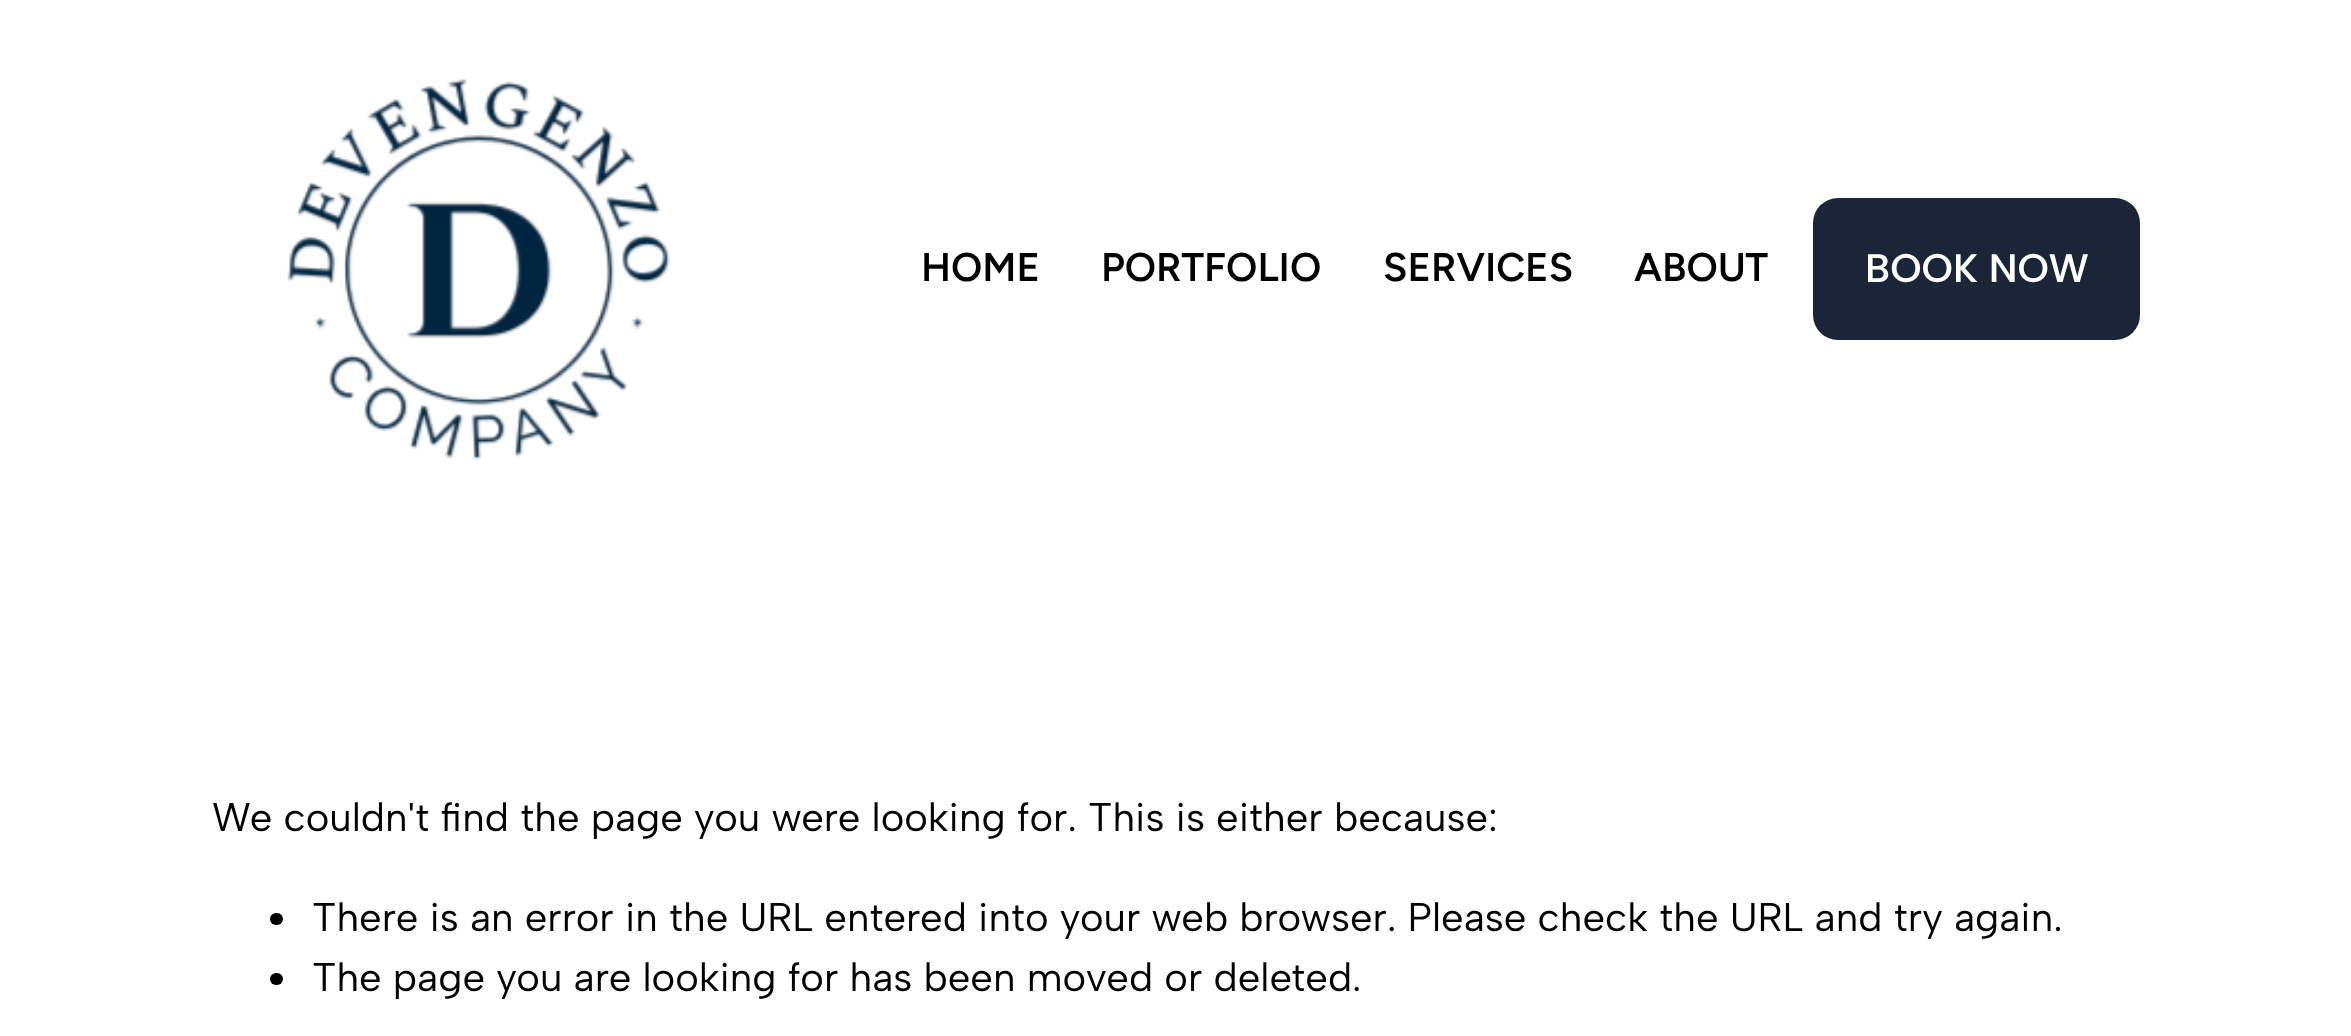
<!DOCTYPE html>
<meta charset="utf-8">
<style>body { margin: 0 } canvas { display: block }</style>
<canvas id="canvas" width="2351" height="1036"></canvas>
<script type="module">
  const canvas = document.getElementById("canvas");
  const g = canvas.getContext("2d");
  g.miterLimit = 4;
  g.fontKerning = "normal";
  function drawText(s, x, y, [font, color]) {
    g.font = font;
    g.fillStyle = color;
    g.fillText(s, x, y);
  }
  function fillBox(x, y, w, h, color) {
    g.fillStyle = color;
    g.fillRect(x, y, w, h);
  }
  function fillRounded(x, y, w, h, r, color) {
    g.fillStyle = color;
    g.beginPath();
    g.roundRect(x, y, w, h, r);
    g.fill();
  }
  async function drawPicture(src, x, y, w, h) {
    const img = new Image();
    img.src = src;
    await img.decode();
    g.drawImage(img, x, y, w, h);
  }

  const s1 = ["600 40px Figtree", "#000000"];
  const s2 = ["500 40px Poppins", "#FFFFFF"];
  const s3 = ["40px Albert Sans", "#000000"];

  fillBox(0, 0, 2351, 1036, "#FFFFFF");
  await drawPicture("pic1.png", 287, 79, 383, 381);
  drawText("HOME", 921, 281, s1);
  drawText("PORTFOLIO", 1101, 281, s1);
  drawText("SERVICES", 1383, 281, s1);
  drawText("ABOUT", 1634, 281, s1);
  fillRounded(1813, 198, 327, 142, 25, "#1A2537");
  drawText("BOOK NOW", 1865, 282, s2);
  drawText("We couldn't find the page you were looking for. This is either because:", 212, 831, s3);
  fillRounded(270, 913, 13, 12, 6, "#000000");
  drawText("There is an error in the URL entered into your web browser. Please check the URL and try again.", 312, 931, s3);
  fillRounded(270, 973, 13, 12, 6, "#000000");
  drawText("The page you are looking for has been moved or deleted.", 312, 991, s3);
</script>
